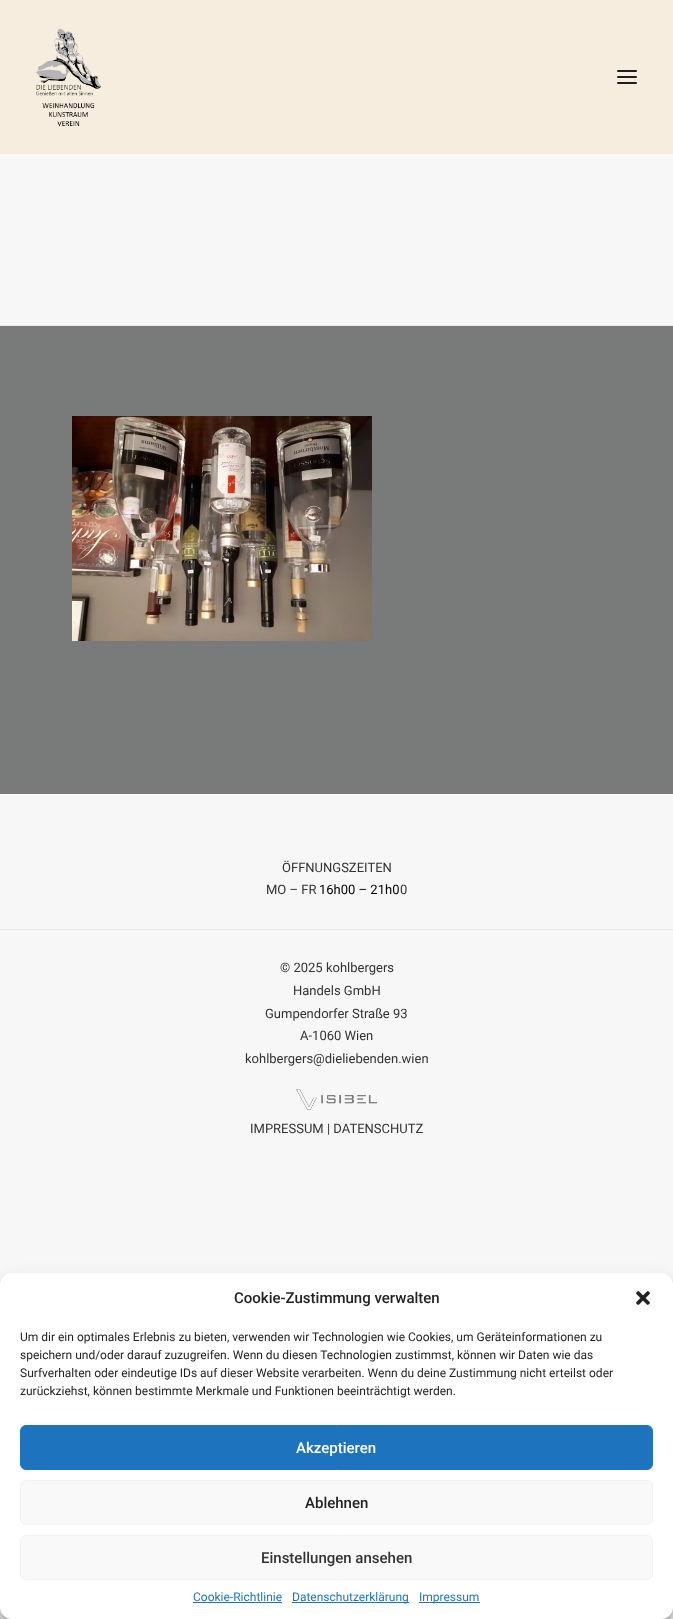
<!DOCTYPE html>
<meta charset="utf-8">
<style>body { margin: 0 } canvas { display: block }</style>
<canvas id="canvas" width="673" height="1619"></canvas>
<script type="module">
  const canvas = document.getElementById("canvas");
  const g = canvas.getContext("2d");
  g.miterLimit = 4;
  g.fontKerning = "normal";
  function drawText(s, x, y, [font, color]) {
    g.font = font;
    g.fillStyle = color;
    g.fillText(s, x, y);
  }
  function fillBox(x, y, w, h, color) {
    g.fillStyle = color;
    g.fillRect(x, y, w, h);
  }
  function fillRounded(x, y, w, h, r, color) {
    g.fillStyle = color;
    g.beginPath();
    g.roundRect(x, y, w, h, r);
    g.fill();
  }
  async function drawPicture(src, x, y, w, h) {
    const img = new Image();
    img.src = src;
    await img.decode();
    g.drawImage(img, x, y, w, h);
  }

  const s1 = ["13px Roboto", "#333333"];
  const s2 = ["13px Roboto", "#000000"];
  const s3 = ["500 15px Roboto", "#222222"];
  const s4 = ["12px Roboto", "#222222"];
  const s5 = ["500 15px Roboto", "#FFFFFF"];
  const s6 = ["500 15px Roboto", "#333333"];
  const s7 = ["12px Roboto", "#1E73BE"];

  fillBox(0, 0, 673, 1619, "#F7F7F7");
  fillBox(0, 0, 673, 154, "#F7EDDE");
  await drawPicture("pic1.png", 36, 28, 65, 99);
  fillRounded(617, 76, 20, 2, 1, "#1B1D1F");
  fillRounded(617, 70, 20, 2, 1, "#1B1D1F");
  fillRounded(617, 82, 20, 2, 1, "#1B1D1F");
  fillBox(0, 325, 673, 1, "#EAEAEA");
  fillBox(0, 326, 673, 468, "#797B7A");
  await drawPicture("pic2.png", 72, 416, 300, 225);
  drawText("ÖFFNUNGSZEITEN", 282, 872, s1);
  drawText("MO – FR", 266, 894, s1);
  drawText("16h00 – 21h0", 319, 894, s2);
  drawText("0", 400, 894, s1);
  fillBox(0, 929, 673, 1, "#EAEAEA");
  drawText("© 2025 kohlbergers", 280, 972, s1);
  drawText("Handels GmbH", 293, 995, s1);
  drawText("Gumpendorfer Straße 93", 265, 1018, s1);
  drawText("A-1060 Wien", 300, 1040, s1);
  drawText("kohlbergers@dieliebenden.wien", 245, 1063, s1);
  await drawPicture("pic3.png", 296, 1089, 81, 21);
  drawText("IMPRESSUM | DATENSCHUTZ", 250, 1133, s1);
  g.fillStyle = "rgba(0, 0, 0, 0.23)";
  g.filter = "blur(3px)";
  g.beginPath();
  g.roundRect(0, 1279, 673, 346, 12);
  g.fill();
  g.filter = "none";
  g.fillStyle = "rgba(0, 0, 0, 0.19)";
  g.filter = "blur(10px)";
  g.beginPath();
  g.roundRect(0, 1283, 673, 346, 12);
  g.fill();
  g.filter = "none";
  fillRounded(0, 1273, 673, 346, 12, "#FFFFFF");
  drawText("Cookie-Zustimmung verwalten", 234, 1303, s3);
  await drawPicture("pic4.png", 636, 1291, 14, 14);
  drawText("Um dir ein optimales Erlebnis zu bieten, verwenden wir Technologien wie Cookies, um Geräteinformationen zu", 20, 1341, s4);
  drawText("speichern und/oder darauf zuzugreifen. Wenn du diesen Technologien zustimmst, können wir Daten wie das", 20, 1359, s4);
  drawText("Surfverhalten oder eindeutige IDs auf dieser Website verarbeiten. Wenn du deine Zustimmung nicht erteilst oder", 20, 1377, s4);
  drawText("zurückziehst, können bestimmte Merkmale und Funktionen beeinträchtigt werden.", 20, 1395, s4);
  g.fillStyle = "#1E73BE";
  g.beginPath();
  g.roundRect(20.5, 1425.5, 632, 44, 5.5);
  g.fill();
  g.strokeStyle = "#1E73BE";
  g.stroke();
  drawText("Akzeptieren", 296, 1453, s5);
  g.fillStyle = "#F9F9F9";
  g.beginPath();
  g.roundRect(20.5, 1480.5, 632, 44, 5.5);
  g.fill();
  g.strokeStyle = "#F2F2F2";
  g.stroke();
  drawText("Ablehnen", 305, 1508, s3);
  g.fillStyle = "#F9F9F9";
  g.beginPath();
  g.roundRect(20.5, 1535.5, 632, 44, 5.5);
  g.fill();
  g.stroke();
  drawText("Einstellungen ansehen", 261, 1563, s6);
  drawText("Cookie-Richtlinie", 193, 1601, s7);
  fillBox(193, 1602, 89, 1, "#1E73BE");
  fillBox(292, 1602, 117, 1, "#1E73BE");
  drawText("Datenschutzerklärung", 292, 1601, s7);
  fillBox(419, 1602, 61, 1, "#1E73BE");
  drawText("Impressum", 419, 1601, s7);
</script>
